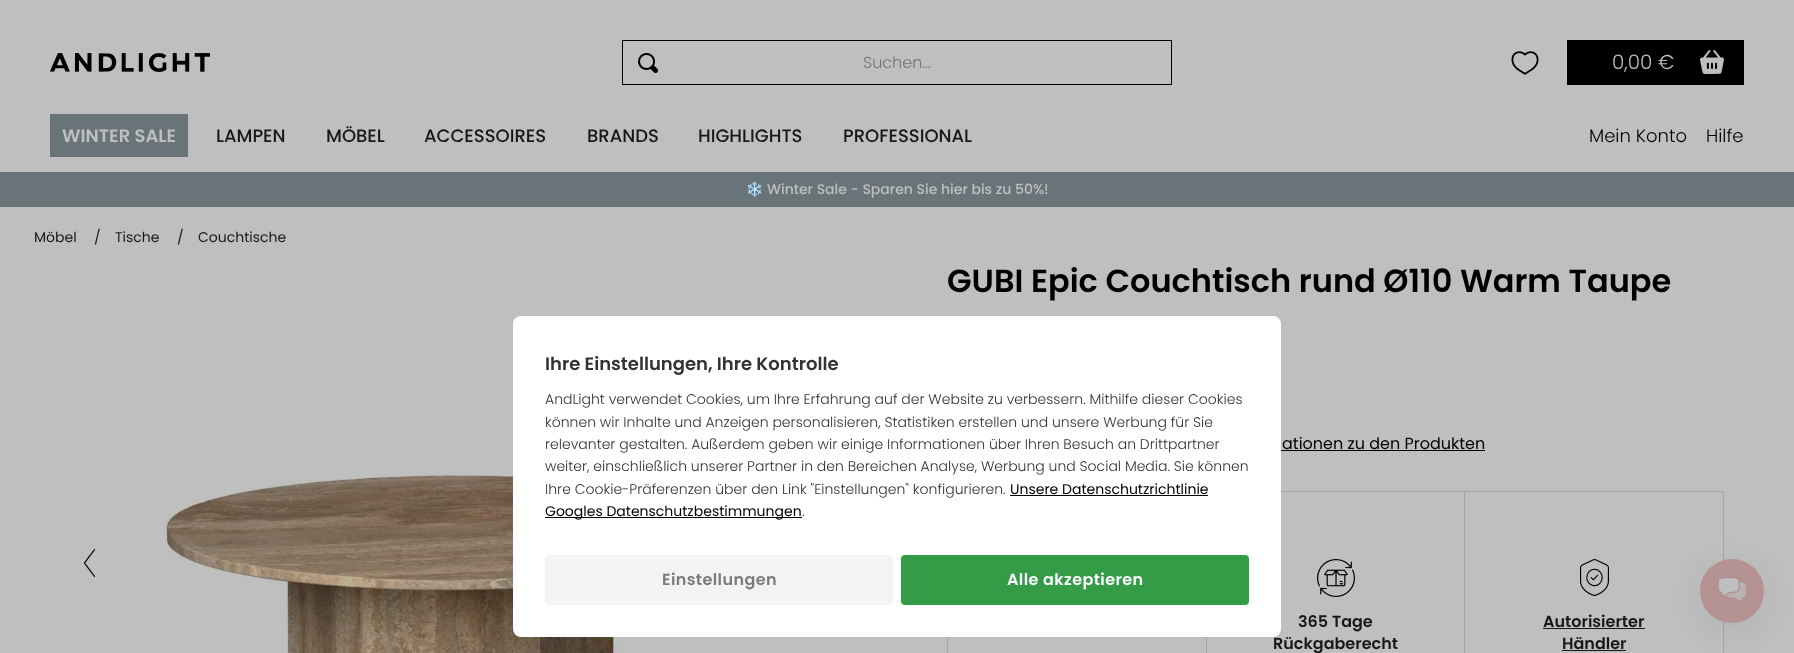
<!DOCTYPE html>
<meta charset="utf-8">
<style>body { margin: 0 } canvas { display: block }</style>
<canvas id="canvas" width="1794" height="653"></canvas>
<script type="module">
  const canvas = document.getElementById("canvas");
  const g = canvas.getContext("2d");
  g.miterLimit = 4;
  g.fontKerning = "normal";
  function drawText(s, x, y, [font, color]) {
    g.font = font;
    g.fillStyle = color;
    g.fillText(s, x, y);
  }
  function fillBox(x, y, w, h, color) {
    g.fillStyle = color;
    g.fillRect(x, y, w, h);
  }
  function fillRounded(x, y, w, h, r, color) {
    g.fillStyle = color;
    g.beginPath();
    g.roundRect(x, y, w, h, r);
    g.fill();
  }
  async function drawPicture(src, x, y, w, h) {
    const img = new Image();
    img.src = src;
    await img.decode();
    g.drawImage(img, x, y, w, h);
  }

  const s1 = ["300 16px Poppins", "#727272"];
  const s2 = ["300 20px Poppins", "#BFBFBF"];
  const s3 = ["600 18px Poppins", "#BFBFBF"];
  const s4 = ["500 18px Poppins", "#181818"];
  const s5 = ["300 18px Poppins", "#000000"];
  const s6 = ["14px Noto Color Emoji", "#BFBFBF"];
  const s7 = ["500 14px Poppins", "#BFBFBF"];
  const s8 = ["14px Poppins", "#181818"];
  const s9 = ["600 32px Poppins", "#000000"];
  const s10 = ["16px Poppins", "#000000"];
  const s11 = ["600 16px Poppins", "#181818"];
  const s12 = ["600 18px Poppins", "#333333"];
  const s13 = ["300 14px Poppins", "#333333"];
  const s14 = ["14px Poppins", "#000000"];
  const s15 = ["600 16px Poppins", "#7C7B7B"];
  const s16 = ["600 16px Poppins", "#FFFFFF"];

  fillBox(0, 0, 1794, 653, "#BFBFBF");
  await drawPicture("pic1.png", 50, 53, 160, 19);
  await drawPicture("pic2.png", 638, 53, 20, 20);
  g.strokeStyle = "#000000";
  g.strokeRect(622.5, 40.5, 549, 44);
  drawText("Suchen...", 863, 68, s1);
  await drawPicture("pic3.png", 1511, 51, 28, 24);
  fillBox(1567, 40, 177, 45, "#000000");
  drawText("0,00 €", 1612, 69, s2);
  await drawPicture("pic4.png", 1700, 50, 24, 24);
  fillBox(50, 114, 138, 43, "#687477");
  drawText("WINTER SALE", 62, 142, s3);
  drawText("LAMPEN", 216, 142, s4);
  drawText("MÖBEL", 326, 142, s4);
  drawText("ACCESSOIRES", 424, 142, s4);
  drawText("BRANDS", 587, 142, s4);
  drawText("HIGHLIGHTS", 698, 142, s4);
  drawText("PROFESSIONAL", 843, 142, s4);
  drawText("Mein Konto", 1589, 142, s5);
  drawText("Hilfe", 1706, 142, s5);
  fillBox(0, 172, 1794, 35, "#687477");
  drawText("❄️", 746, 194, s6);
  drawText("Winter Sale - Sparen Sie hier bis zu 50%!", 767, 194, s7);
  drawText("Möbel", 34, 242, s8);
  drawText("/", 94, 242, s8);
  drawText("Tische", 115, 242, s8);
  drawText("/", 177, 242, s8);
  drawText("Couchtische", 198, 242, s8);
  await drawPicture("pic5.png", 83, 548, 13, 30);
  await drawPicture("pic6.png", 164, 475, 576, 178);
  drawText("GUBI Epic Couchtisch rund Ø110 Warm Taupe", 947, 292, s9);
  drawText("ationen zu den Produkten", 1282, 449, s10);
  fillBox(1281, 450, 204, 1, "#000000");
  fillBox(947, 637, 1, 16, "#A4A4A4");
  g.strokeStyle = "#A4A4A4";
  g.strokeRect(1206.5, 491.5, 258, 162);
  await drawPicture("pic7.png", 1317, 559, 38, 38);
  drawText("365 Tage", 1298, 627, s11);
  drawText("Rückgaberecht", 1273, 649, s11);
  fillBox(1465, 491, 259, 1, "#A4A4A4");
  fillBox(1723, 491, 1, 162, "#A4A4A4");
  await drawPicture("pic8.png", 1580, 559, 29, 37);
  drawText("Autorisierter", 1543, 627, s11);
  fillBox(1543, 628, 102, 1, "#181818");
  drawText("Händler", 1562, 649, s11);
  fillBox(1562, 650, 64, 1, "#181818");
  fillRounded(513, 316, 768, 321, 8, "#FFFFFF");
  drawText("Ihre Einstellungen, Ihre Kontrolle", 545, 370, s12);
  drawText("AndLight verwendet Cookies, um Ihre Erfahrung auf der Website zu verbessern. Mithilfe dieser Cookies", 545, 404, s13);
  drawText("können wir Inhalte und Anzeigen personalisieren, Statistiken erstellen und unsere Werbung für Sie", 545, 427, s13);
  drawText("relevanter gestalten. Außerdem geben wir einige Informationen über Ihren Besuch an Drittpartner", 545, 449, s13);
  drawText("weiter, einschließlich unserer Partner in den Bereichen Analyse, Werbung und Social Media. Sie können", 545, 471, s13);
  drawText("Ihre Cookie-Präferenzen über den Link \"Einstellungen\" konfigurieren.", 545, 494, s13);
  drawText("Unsere Datenschutzrichtlinie", 1010, 494, s14);
  fillBox(1010, 495, 198, 1, "#000000");
  fillBox(545, 517, 257, 1, "#000000");
  drawText("Googles Datenschutzbestimmungen", 545, 516, s14);
  drawText(".", 802, 516, s13);
  fillRounded(545, 555, 348, 50, 4, "#F3F3F3");
  g.letterSpacing = "0.4px";
  drawText("Einstellungen", 662, 585, s15);
  fillRounded(901, 555, 348, 50, 4, "#349B46");
  drawText("Alle akzeptieren", 1007, 585, s16);
  g.fillStyle = "rgba(14, 26, 51, 0.08)";
  g.filter = "blur(16px)";
  g.beginPath();
  g.roundRect(1700, 567, 64, 64, 32);
  g.fill();
  g.filter = "none";
  g.fillStyle = "#B49292";
  g.beginPath();
  g.arc(1732, 591, 32, 0, Math.PI * 2);
  g.fill();
  await drawPicture("pic9.png", 1718, 578, 28, 23);
</script>
